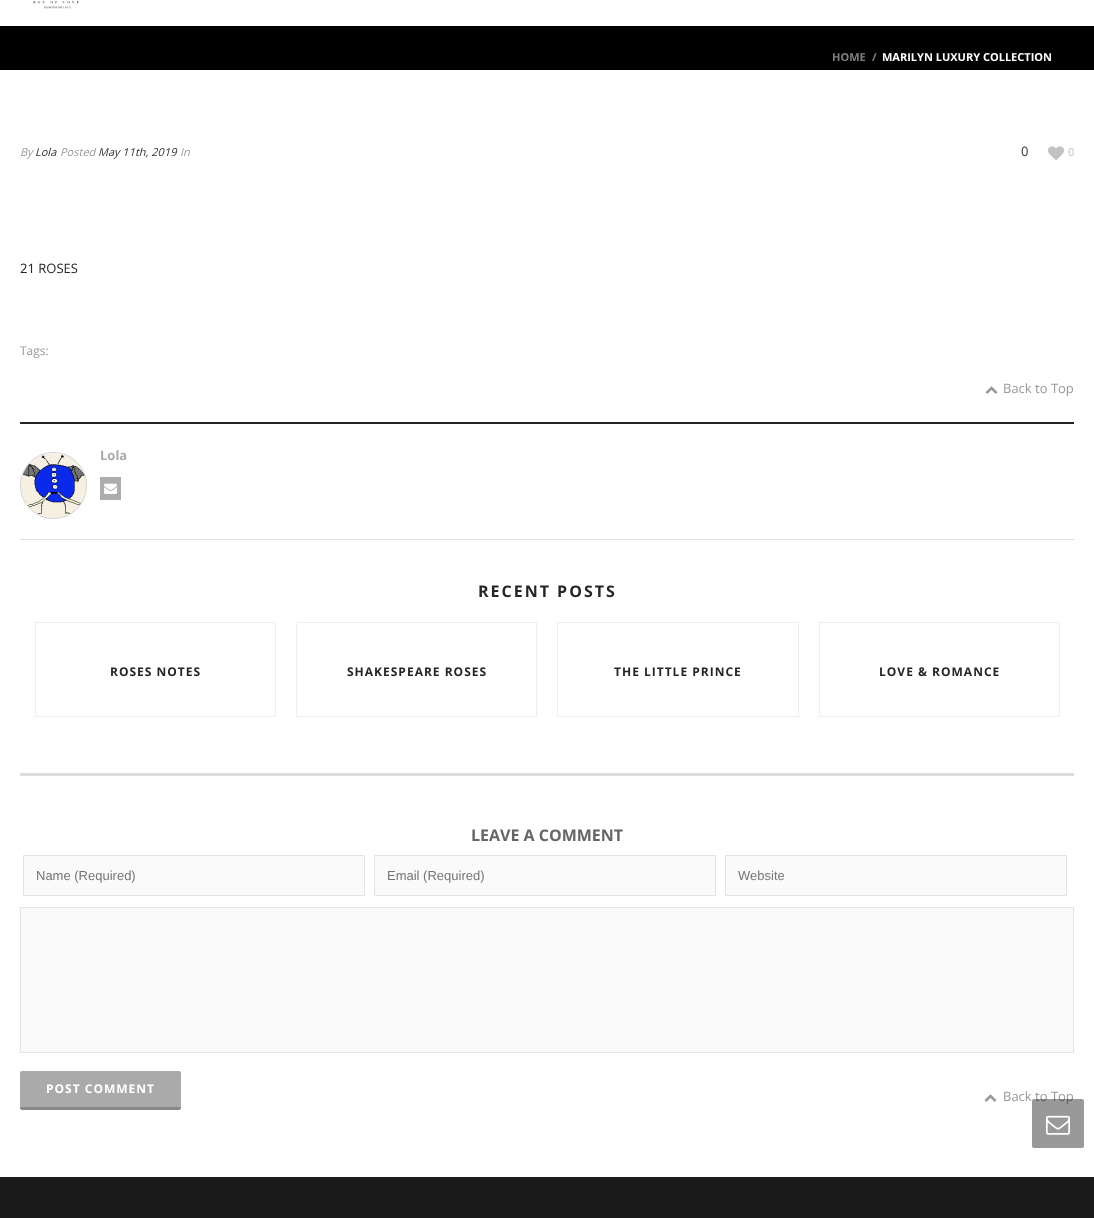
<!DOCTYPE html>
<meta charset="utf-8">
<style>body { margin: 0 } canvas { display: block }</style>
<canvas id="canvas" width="1094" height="1218"></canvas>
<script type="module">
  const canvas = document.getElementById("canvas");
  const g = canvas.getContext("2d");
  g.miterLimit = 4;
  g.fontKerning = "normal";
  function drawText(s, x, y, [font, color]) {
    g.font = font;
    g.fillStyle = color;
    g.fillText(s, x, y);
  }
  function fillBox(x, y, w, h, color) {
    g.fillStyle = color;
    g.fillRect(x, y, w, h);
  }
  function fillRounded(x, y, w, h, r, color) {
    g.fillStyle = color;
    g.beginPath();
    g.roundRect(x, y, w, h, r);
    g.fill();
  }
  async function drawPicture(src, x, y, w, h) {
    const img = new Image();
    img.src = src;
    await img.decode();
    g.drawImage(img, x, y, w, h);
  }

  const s1 = ["bold 11px Open Sans", "#808080"];
  const s2 = ["bold 11px Open Sans", "#FFFFFF"];
  const s3 = ["italic 11px Open Sans", "#999999"];
  const s4 = ["italic 11px Open Sans", "#333333"];
  const s5 = ["13px Open Sans", "#333333"];
  const s6 = ["11px Open Sans", "#C2C2C2"];
  const s7 = ["13px Open Sans", "#252525"];
  const s8 = ["12px Open Sans", "#999999"];
  const s9 = ["13px Open Sans", "#999999"];
  const s10 = ["bold 13px Open Sans", "#AAAAAA"];
  const s11 = ["bold 16px Open Sans", "#252525"];
  const s12 = ["bold 12px Open Sans", "#252525"];
  const s13 = ["bold 16px Open Sans", "#666666"];
  const s14 = ["13px Liberation Sans", "#757575"];
  const s15 = ["bold 12px Open Sans", "#FFFFFF"];

  fillBox(0, 0, 1094, 1218, "#FFFFFF");
  fillBox(0, 26, 1094, 44, "#000000");
  await drawPicture("pic1.png", 33, 0, 47, 9);
  drawText("HOME", 832, 61, s1);
  drawText("/", 872, 61, s1);
  drawText("MARILYN LUXURY COLLECTION", 882, 61, s2);
  drawText("By", 20, 156, s3);
  drawText("Lola", 35, 156, s4);
  drawText("Posted", 60, 156, s3);
  drawText("May 11th, 2019", 98, 156, s4);
  drawText("In", 180, 156, s3);
  drawText("0", 1021, 156, s5);
  await drawPicture("pic2.png", 1048, 146, 16, 14);
  drawText("0", 1068, 156, s6);
  drawText("21 ROSES", 20, 273, s7);
  drawText("Tags:", 20, 355, s8);
  fillBox(20, 422, 1054, 2, "#252525");
  await drawPicture("pic3.png", 985, 386, 13, 8);
  drawText("Back to Top", 1003, 393, s9);
  fillBox(20, 539, 1054, 1, "#DDDDDD");
  g.beginPath();
  g.arc(53.5, 485.5, 33, 0, Math.PI * 2);
  g.strokeStyle = "#CCCCCC";
  g.stroke();
  await drawPicture("pic4.png", 21, 453, 65, 65);
  drawText("Lola", 100, 460, s10);
  fillBox(100, 477, 21, 23, "#ADADAD");
  await drawPicture("pic5.png", 104, 483, 13, 11);
  fillBox(20, 773, 1054, 3, "#DDDDDD");
  g.letterSpacing = "2px";
  drawText("RECENT POSTS", 478, 597, s11);
  g.strokeStyle = "#EFEFEF";
  g.strokeRect(35.5, 622.5, 240, 94);
  g.letterSpacing = "1px";
  drawText("ROSES NOTES", 110, 676, s12);
  g.strokeRect(296.5, 622.5, 240, 94);
  drawText("SHAKESPEARE ROSES", 347, 676, s12);
  g.strokeRect(557.5, 622.5, 241, 94);
  drawText("THE LITTLE PRINCE", 614, 676, s12);
  g.strokeRect(819.5, 622.5, 240, 94);
  drawText("LOVE & ROMANCE", 879, 676, s12);
  g.letterSpacing = "0px";
  drawText("LEAVE A COMMENT", 471, 841, s13);
  g.fillStyle = "#FAFAFA";
  g.beginPath();
  g.rect(23.5, 855.5, 341, 40);
  g.fill();
  g.strokeStyle = "#E3E3E3";
  g.stroke();
  drawText("Name (Required)", 36, 880, s14);
  g.fillStyle = "#FAFAFA";
  g.beginPath();
  g.rect(374.5, 855.5, 341, 40);
  g.fill();
  g.stroke();
  drawText("Email (Required)", 387, 880, s14);
  g.fillStyle = "#FAFAFA";
  g.beginPath();
  g.rect(725.5, 855.5, 341, 40);
  g.fill();
  g.stroke();
  drawText("Website", 738, 880, s14);
  g.fillStyle = "#FAFAFA";
  g.beginPath();
  g.rect(20.5, 907.5, 1053, 145);
  g.fill();
  g.stroke();
  g.fillStyle = "#888888";
  g.beginPath();
  g.moveTo(20, 1105);
  g.lineTo(20, 1108);
  g.bezierCurveTo(20, 1109, 21, 1110, 22, 1110);
  g.lineTo(179, 1110);
  g.bezierCurveTo(180, 1110, 181, 1109, 181, 1108);
  g.lineTo(181, 1105);
  g.bezierCurveTo(181, 1106, 180, 1107, 179, 1107);
  g.lineTo(22, 1107);
  g.bezierCurveTo(21, 1107, 20, 1106, 20, 1105);
  g.closePath();
  g.fill();
  fillRounded(20, 1071, 161, 36, 2, "#AAAAAA");
  g.letterSpacing = "1px";
  drawText("POST COMMENT", 46, 1093, s15);
  await drawPicture("pic3.png", 984, 1094, 13, 8);
  g.letterSpacing = "0px";
  drawText("Back to Top", 1003, 1101, s9);
  fillBox(0, 1177, 1094, 41, "#1A1A1A");
  fillRounded(1032, 1099, 52, 49, 2, "rgba(0, 0, 0, 0.4)");
  await drawPicture("pic6.png", 1046, 1115, 24, 20);
</script>
